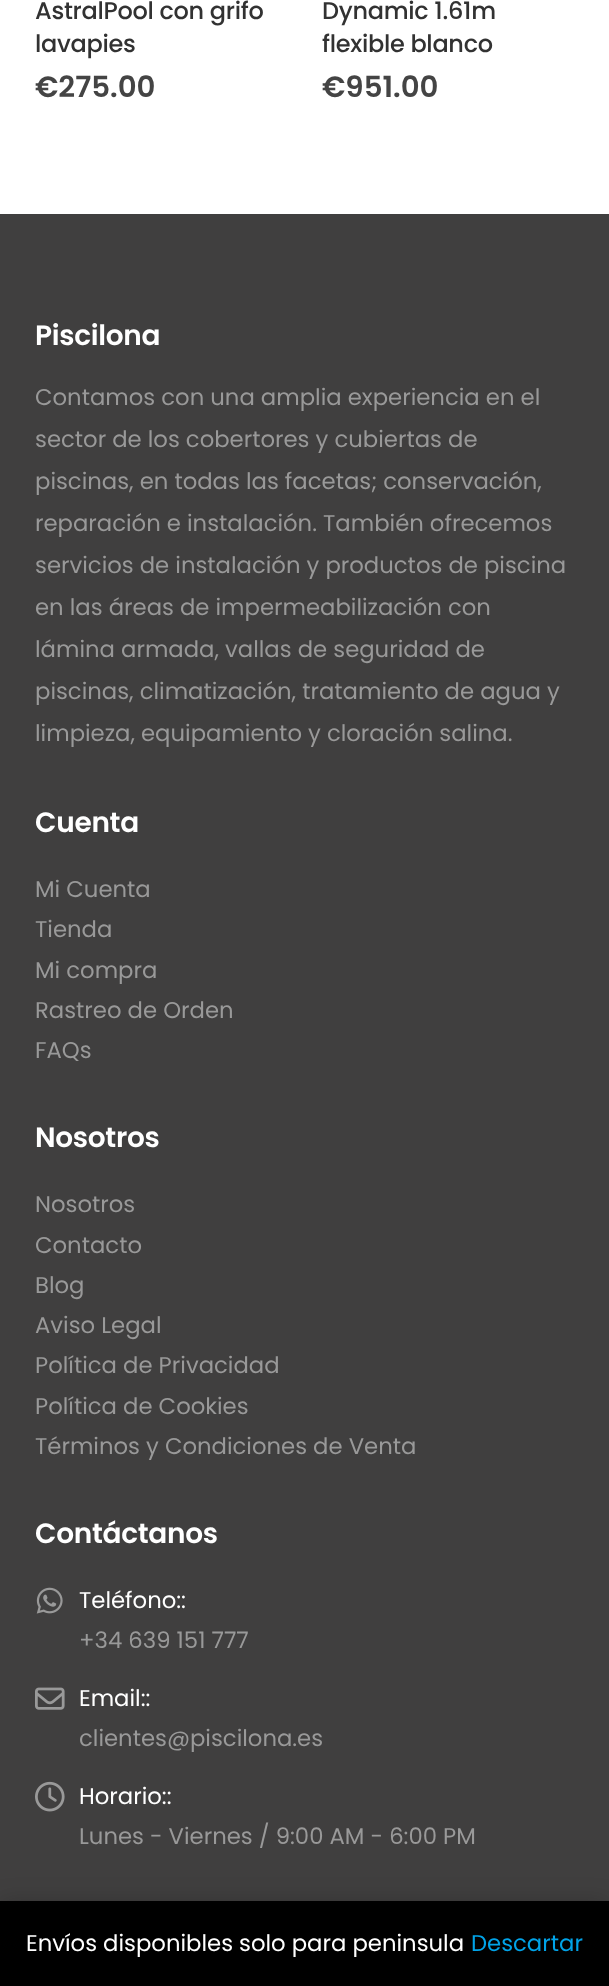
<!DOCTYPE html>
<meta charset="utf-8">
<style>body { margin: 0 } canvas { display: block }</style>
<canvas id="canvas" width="609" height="1986"></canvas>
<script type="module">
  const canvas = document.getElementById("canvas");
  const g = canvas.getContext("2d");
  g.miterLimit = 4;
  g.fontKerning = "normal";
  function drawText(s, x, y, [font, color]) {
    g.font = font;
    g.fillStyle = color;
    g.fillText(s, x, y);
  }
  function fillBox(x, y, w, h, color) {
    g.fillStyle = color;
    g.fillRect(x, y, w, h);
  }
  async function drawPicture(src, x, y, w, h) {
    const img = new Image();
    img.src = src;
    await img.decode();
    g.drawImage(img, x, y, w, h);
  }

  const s1 = ["500 24px Poppins", "#323232"];
  const s2 = ["600 29.25px Poppins", "#444444"];
  const s3 = ["600 28px Poppins", "#FFFFFF"];
  const s4 = ["22.75px Poppins", "#999999"];
  const s5 = ["22.75px Poppins", "#FFFFFF"];
  const s6 = ["22.75px Poppins", "#00A3E8"];

  fillBox(0, 0, 609, 1986, "#FFFFFF");
  g.letterSpacing = "-0.3px";
  drawText("AstralPool con grifo", 35, 19, s1);
  drawText("lavapies", 35, 52, s1);
  g.letterSpacing = "0px";
  drawText("€275.00", 35, 97, s2);
  g.letterSpacing = "-0.3px";
  drawText("Dynamic 1.61m", 322, 19, s1);
  drawText("flexible blanco", 322, 52, s1);
  g.letterSpacing = "0px";
  drawText("€951.00", 322, 97, s2);
  fillBox(0, 214, 609, 1687, "#403F3F");
  g.letterSpacing = "-0.3px";
  drawText("Piscilona", 35, 345, s3);
  g.letterSpacing = "0px";
  drawText("Contamos con una amplia experiencia en el", 35, 405, s4);
  drawText("sector de los cobertores y cubiertas de", 35, 447, s4);
  drawText("piscinas, en todas las facetas; conservación,", 35, 489, s4);
  drawText("reparación e instalación. También ofrecemos", 35, 531, s4);
  drawText("servicios de instalación y productos de piscina", 35, 573, s4);
  drawText("en las áreas de impermeabilización con", 35, 615, s4);
  drawText("lámina armada, vallas de seguridad de", 35, 657, s4);
  drawText("piscinas, climatización, tratamiento de agua y", 35, 699, s4);
  drawText("limpieza, equipamiento y cloración salina.", 35, 741, s4);
  g.letterSpacing = "-0.3px";
  drawText("Cuenta", 35, 832, s3);
  g.letterSpacing = "0px";
  drawText("Mi Cuenta", 35, 897, s4);
  drawText("Tienda", 35, 937, s4);
  drawText("Mi compra", 35, 978, s4);
  drawText("Rastreo de Orden", 35, 1018, s4);
  drawText("FAQs", 35, 1058, s4);
  g.letterSpacing = "-0.3px";
  drawText("Nosotros", 35, 1147, s3);
  g.letterSpacing = "0px";
  drawText("Nosotros", 35, 1212, s4);
  drawText("Contacto", 35, 1253, s4);
  drawText("Blog", 35, 1293, s4);
  drawText("Aviso Legal", 35, 1333, s4);
  drawText("Política de Privacidad", 35, 1373, s4);
  drawText("Política de Cookies", 35, 1414, s4);
  drawText("Términos y Condiciones de Venta", 35, 1454, s4);
  g.letterSpacing = "-0.3px";
  drawText("Contáctanos", 35, 1543, s3);
  await drawPicture("pic1.png", 36, 1587, 27, 27);
  g.letterSpacing = "0px";
  drawText("Teléfono::", 79, 1608, s5);
  drawText("+34 639 151 777", 79, 1648, s4);
  await drawPicture("pic2.png", 35, 1687, 30, 23);
  drawText("Email::", 79, 1706, s5);
  drawText("clientes@piscilona.es", 79, 1746, s4);
  await drawPicture("pic3.png", 35, 1781, 30, 31);
  drawText("Horario::", 79, 1804, s5);
  drawText("Lunes - Viernes / 9:00 AM - 6:00 PM", 79, 1844, s4);
  g.fillStyle = "rgba(0, 0, 0, 0.2)";
  g.filter = "blur(11.5px)";
  g.beginPath();
  g.rect(0, 1902, 609, 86);
  g.fill();
  g.filter = "none";
  fillBox(0, 1901, 609, 85, "#000000");
  drawText("Envíos disponibles solo para peninsula", 26, 1951, s5);
  drawText("Descartar", 471, 1951, s6);
</script>
